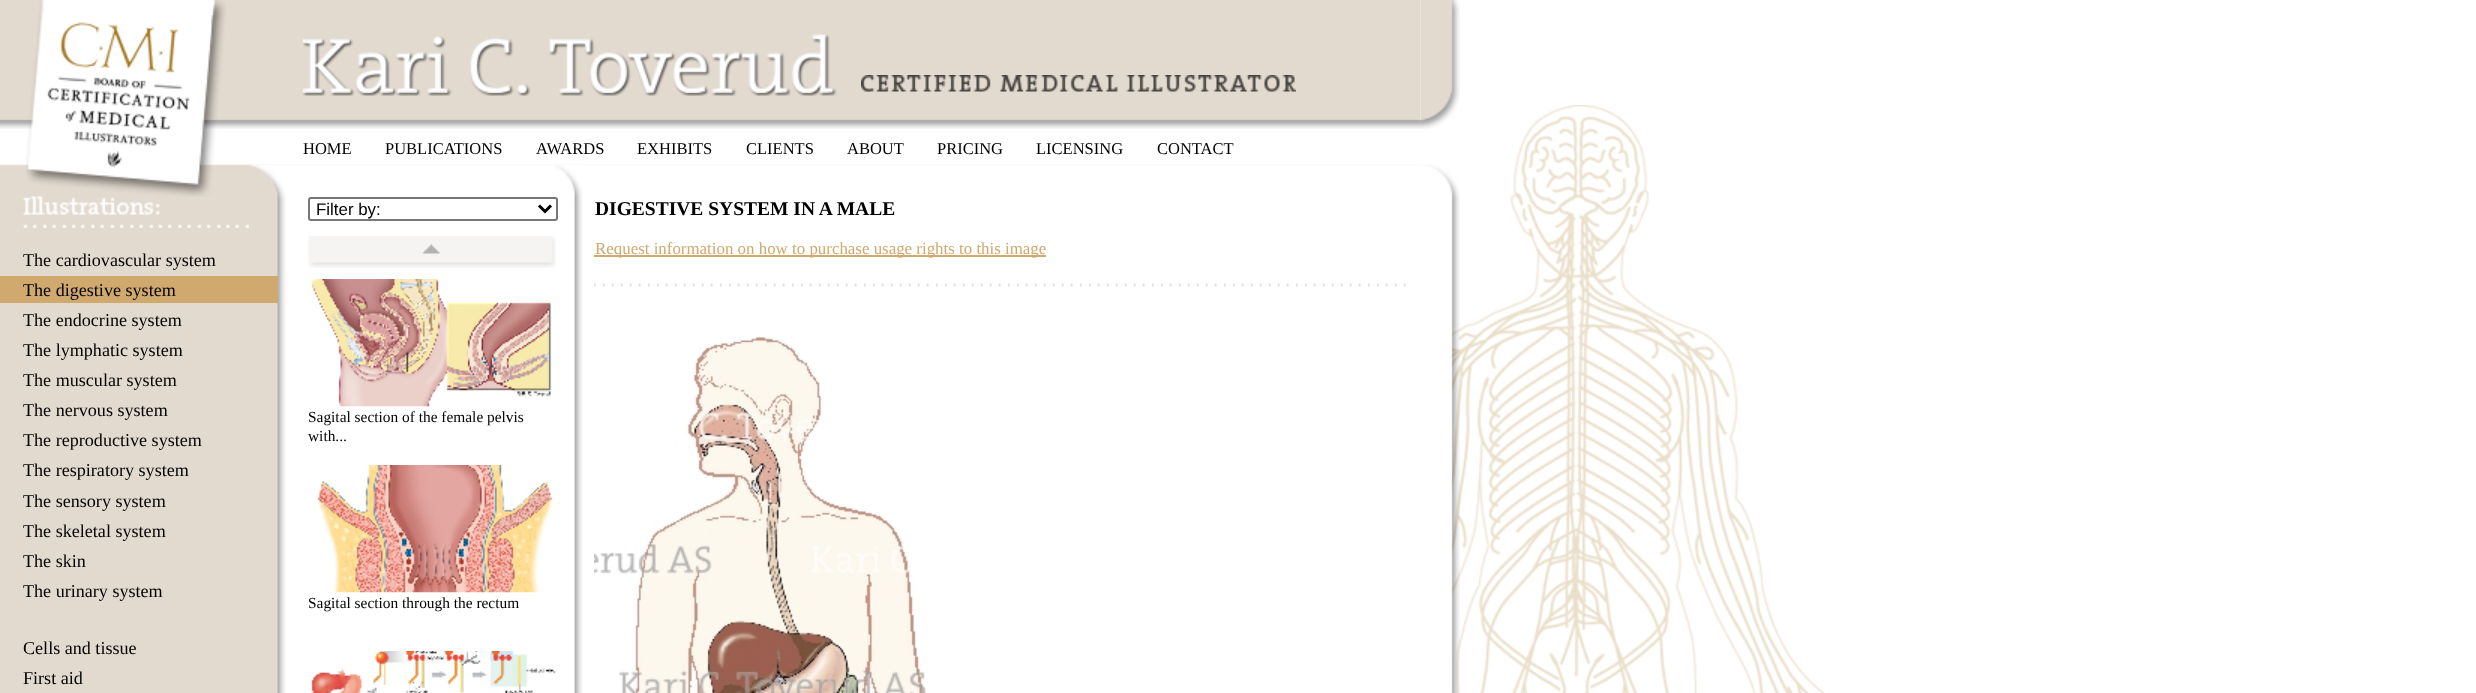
<!DOCTYPE html>
<meta charset="utf-8">
<style>body { margin: 0 } canvas { display: block }</style>
<canvas id="canvas" width="2476" height="693"></canvas>
<script type="module">
  const canvas = document.getElementById("canvas");
  const g = canvas.getContext("2d");
  g.miterLimit = 4;
  g.fontKerning = "normal";
  function drawText(s, x, y, [font, color]) {
    g.font = font;
    g.fillStyle = color;
    g.fillText(s, x, y);
  }
  function fillBox(x, y, w, h, color) {
    g.fillStyle = color;
    g.fillRect(x, y, w, h);
  }
  async function drawPicture(src, x, y, w, h) {
    const img = new Image();
    img.src = src;
    await img.decode();
    g.drawImage(img, x, y, w, h);
  }

  const s1 = ["16.5px Liberation Serif", "#000000"];
  const s2 = ["18.1px Liberation Serif", "#000000"];
  const s3 = ["16.9px Liberation Sans", "#000000"];
  const s4 = ["15.4px Liberation Serif", "#000000"];
  const s5 = ["bold 19.5px Liberation Serif", "#000000"];
  const s6 = ["16.9px Liberation Serif", "#D0A96E"];

  fillBox(0, 0, 2476, 693, "#FFFFFF");
  await drawPicture("pic1.png", 1451, 105, 374, 588);
  await drawPicture("pic2.png", 0, 198, 1460, 495);
  await drawPicture("pic4.png", 1420, 0, 40, 129);
  await drawPicture("pic5.png", 0, 0, 1421, 129);
  await drawPicture("pic8.png", 0, 164, 1460, 34);
  await drawPicture("pic9.png", 22, 196, 138, 19);
  await drawPicture("pic3.png", 26, 0, 200, 197);
  await drawPicture("pic6.png", 303, 34, 534, 62);
  await drawPicture("pic7.png", 861, 75, 435, 17);
  drawText("HOME", 303, 154, s1);
  drawText("PUBLICATIONS", 385, 154, s1);
  drawText("AWARDS", 536, 154, s1);
  drawText("EXHIBITS", 637, 154, s1);
  drawText("CLIENTS", 746, 154, s1);
  drawText("ABOUT", 847, 154, s1);
  drawText("PRICING", 937, 154, s1);
  drawText("LICENSING", 1036, 154, s1);
  drawText("CONTACT", 1157, 154, s1);
  await drawPicture("pic10.png", 23, 224, 226, 4);
  drawText("The cardiovascular system", 23, 266, s2);
  fillBox(0, 276, 278, 27, "#D0A96E");
  drawText("The digestive system", 23, 296, s2);
  drawText("The endocrine system", 23, 326, s2);
  drawText("The lymphatic system", 23, 356, s2);
  drawText("The muscular system", 23, 386, s2);
  drawText("The nervous system", 23, 416, s2);
  drawText("The reproductive system", 23, 446, s2);
  drawText("The respiratory system", 23, 476, s2);
  drawText("The sensory system", 23, 507, s2);
  drawText("The skeletal system", 23, 537, s2);
  drawText("The skin", 23, 567, s2);
  drawText("The urinary system", 23, 597, s2);
  drawText("Cells and tissue", 23, 654, s2);
  drawText("First aid", 23, 684, s2);
  await drawPicture("pic11.png", 554, 165, 29, 528);
  g.beginPath();
  g.roundRect(309, 198, 248, 22, 2);
  g.strokeStyle = "#767676";
  g.lineWidth = 2;
  g.stroke();
  g.beginPath();
  g.moveTo(539, 205.5);
  g.lineTo(545, 211.5);
  g.lineTo(551, 205.5);
  g.strokeStyle = "#000000";
  g.lineWidth = 3;
  g.stroke();
  drawText("Filter by:", 316, 215, s3);
  await drawPicture("pic12.png", 308, 236, 248, 32);
  await drawPicture("pic13.png", 311, 279, 241, 128);
  drawText("Sagital section of the female pelvis", 308, 422, s4);
  drawText("with...", 308, 441, s4);
  await drawPicture("pic14.png", 317, 465, 236, 128);
  drawText("Sagital section through the rectum", 308, 608, s4);
  await drawPicture("pic15.png", 311, 651, 245, 42);
  drawText("DIGESTIVE SYSTEM IN A MALE", 595, 215, s5);
  fillBox(594, 255, 452, 2, "#D0A96E");
  drawText("Request information on how to purchase usage rights to this image", 595, 254, s6);
  await drawPicture("pic16.png", 594, 283, 812, 4);
  await drawPicture("pic17.png", 594, 336, 332, 357);
</script>
